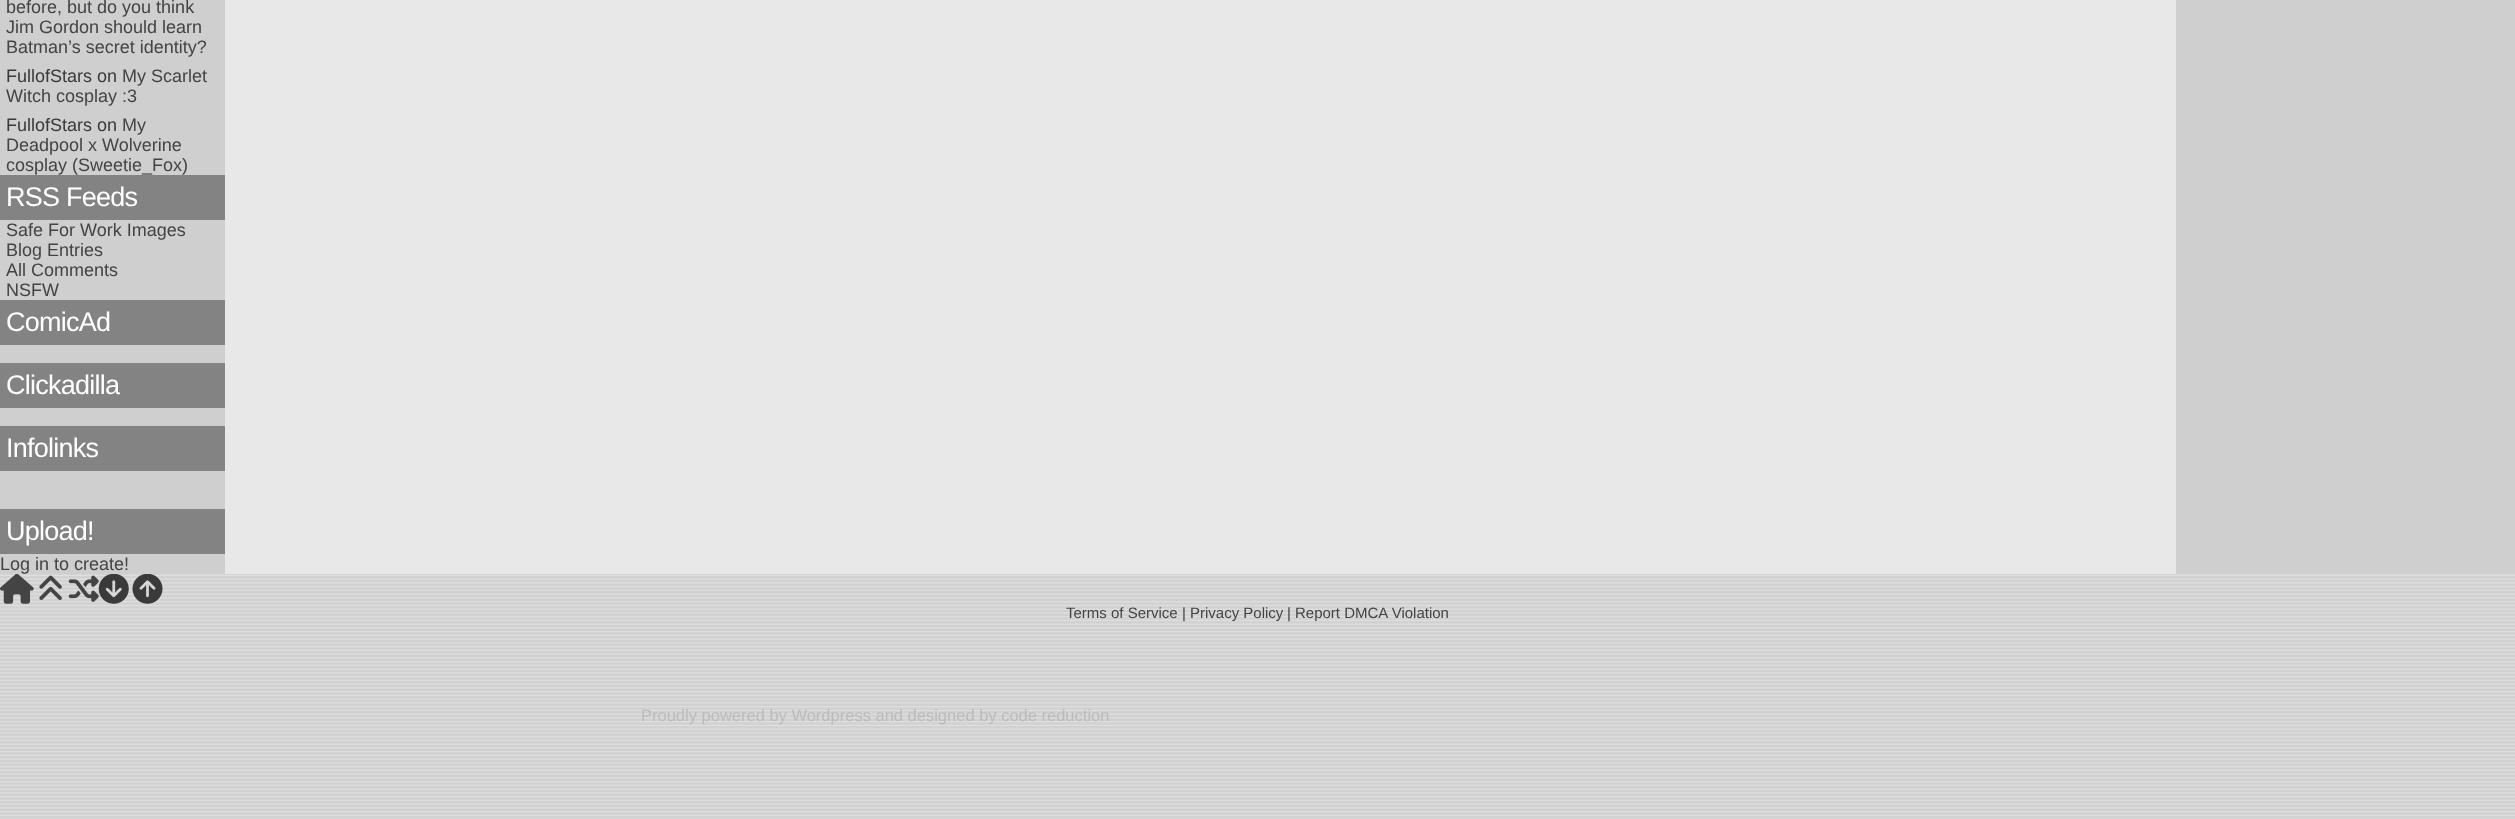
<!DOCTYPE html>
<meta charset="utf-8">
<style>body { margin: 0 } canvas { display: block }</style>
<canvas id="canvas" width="2515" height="819"></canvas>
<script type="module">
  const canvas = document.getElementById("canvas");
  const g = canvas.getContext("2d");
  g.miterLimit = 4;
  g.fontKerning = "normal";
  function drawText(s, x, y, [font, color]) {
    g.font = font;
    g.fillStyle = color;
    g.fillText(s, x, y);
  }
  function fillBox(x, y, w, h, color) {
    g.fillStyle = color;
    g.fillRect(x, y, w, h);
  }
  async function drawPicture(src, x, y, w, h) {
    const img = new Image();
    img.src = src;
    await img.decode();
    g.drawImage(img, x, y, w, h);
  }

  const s1 = ["18px Liberation Sans", "#444444"];
  const s2 = ["18px Liberation Sans", "#3A3A3A"];
  const s3 = ["27px Liberation Sans", "#FFFFFF"];
  const s4 = ["15px Liberation Sans", "#444444"];
  const s5 = ["15px Liberation Sans", "#3A3A3A"];
  const s6 = ["16.5px Liberation Sans", "#BBBBBB"];

  fillBox(0, 0, 2515, 819, "#FFFFFF");
  await drawPicture("pic1.png", 0, 574, 2515, 245);
  fillBox(0, 0, 225, 175, "#CFCFCF");
  drawText("before, but do you think", 6, 13, s1);
  drawText("Jim Gordon should learn", 6, 33, s1);
  drawText("Batman’s secret identity?", 6, 53, s1);
  drawText("FullofStars on", 6, 82, s2);
  drawText("My Scarlet", 122, 82, s1);
  drawText("Witch cosplay :3", 6, 102, s1);
  drawText("FullofStars on", 6, 131, s2);
  drawText("My", 122, 131, s1);
  drawText("Deadpool x Wolverine", 6, 151, s1);
  drawText("cosplay (Sweetie_Fox)", 6, 171, s1);
  fillBox(0, 220, 225, 80, "#CFCFCF");
  fillBox(0, 175, 225, 45, "#838383");
  g.letterSpacing = "-0.75px";
  drawText("RSS Feeds", 6, 206, s3);
  g.letterSpacing = "0px";
  drawText("Safe For Work Images", 6, 236, s1);
  drawText("Blog Entries", 6, 256, s1);
  drawText("All Comments", 6, 276, s1);
  drawText("NSFW", 6, 296, s1);
  fillBox(0, 345, 225, 18, "#CFCFCF");
  fillBox(0, 300, 225, 45, "#838383");
  g.letterSpacing = "-0.75px";
  drawText("ComicAd", 6, 331, s3);
  fillBox(0, 408, 225, 18, "#CFCFCF");
  fillBox(0, 363, 225, 45, "#838383");
  drawText("Clickadilla", 6, 394, s3);
  fillBox(0, 471, 225, 38, "#CFCFCF");
  fillBox(0, 426, 225, 45, "#838383");
  drawText("Infolinks", 6, 457, s3);
  fillBox(0, 554, 225, 20, "#CFCFCF");
  fillBox(0, 509, 225, 45, "#838383");
  drawText("Upload!", 6, 540, s3);
  g.letterSpacing = "0px";
  drawText("Log in to create!", 0, 570, s1);
  fillBox(225, 0, 1951, 574, "#E8E8E8");
  fillBox(2176, 0, 339, 574, "#CFCFCF");
  await drawPicture("pic2.png", 0, 574, 34, 30);
  await drawPicture("pic3.png", 39, 575, 23, 25);
  await drawPicture("pic4.png", 68, 575, 31, 27);
  await drawPicture("pic5.png", 98, 574, 31, 30);
  await drawPicture("pic6.png", 132, 574, 31, 30);
  drawText("Terms of Service", 1066, 618, s4);
  drawText("|", 1182, 618, s5);
  drawText("Privacy Policy", 1190, 618, s4);
  drawText("|", 1287, 618, s5);
  drawText("Report DMCA Violation", 1295, 618, s4);
  drawText("Proudly powered by Wordpress and designed by code reduction", 641, 721, s6);
</script>
